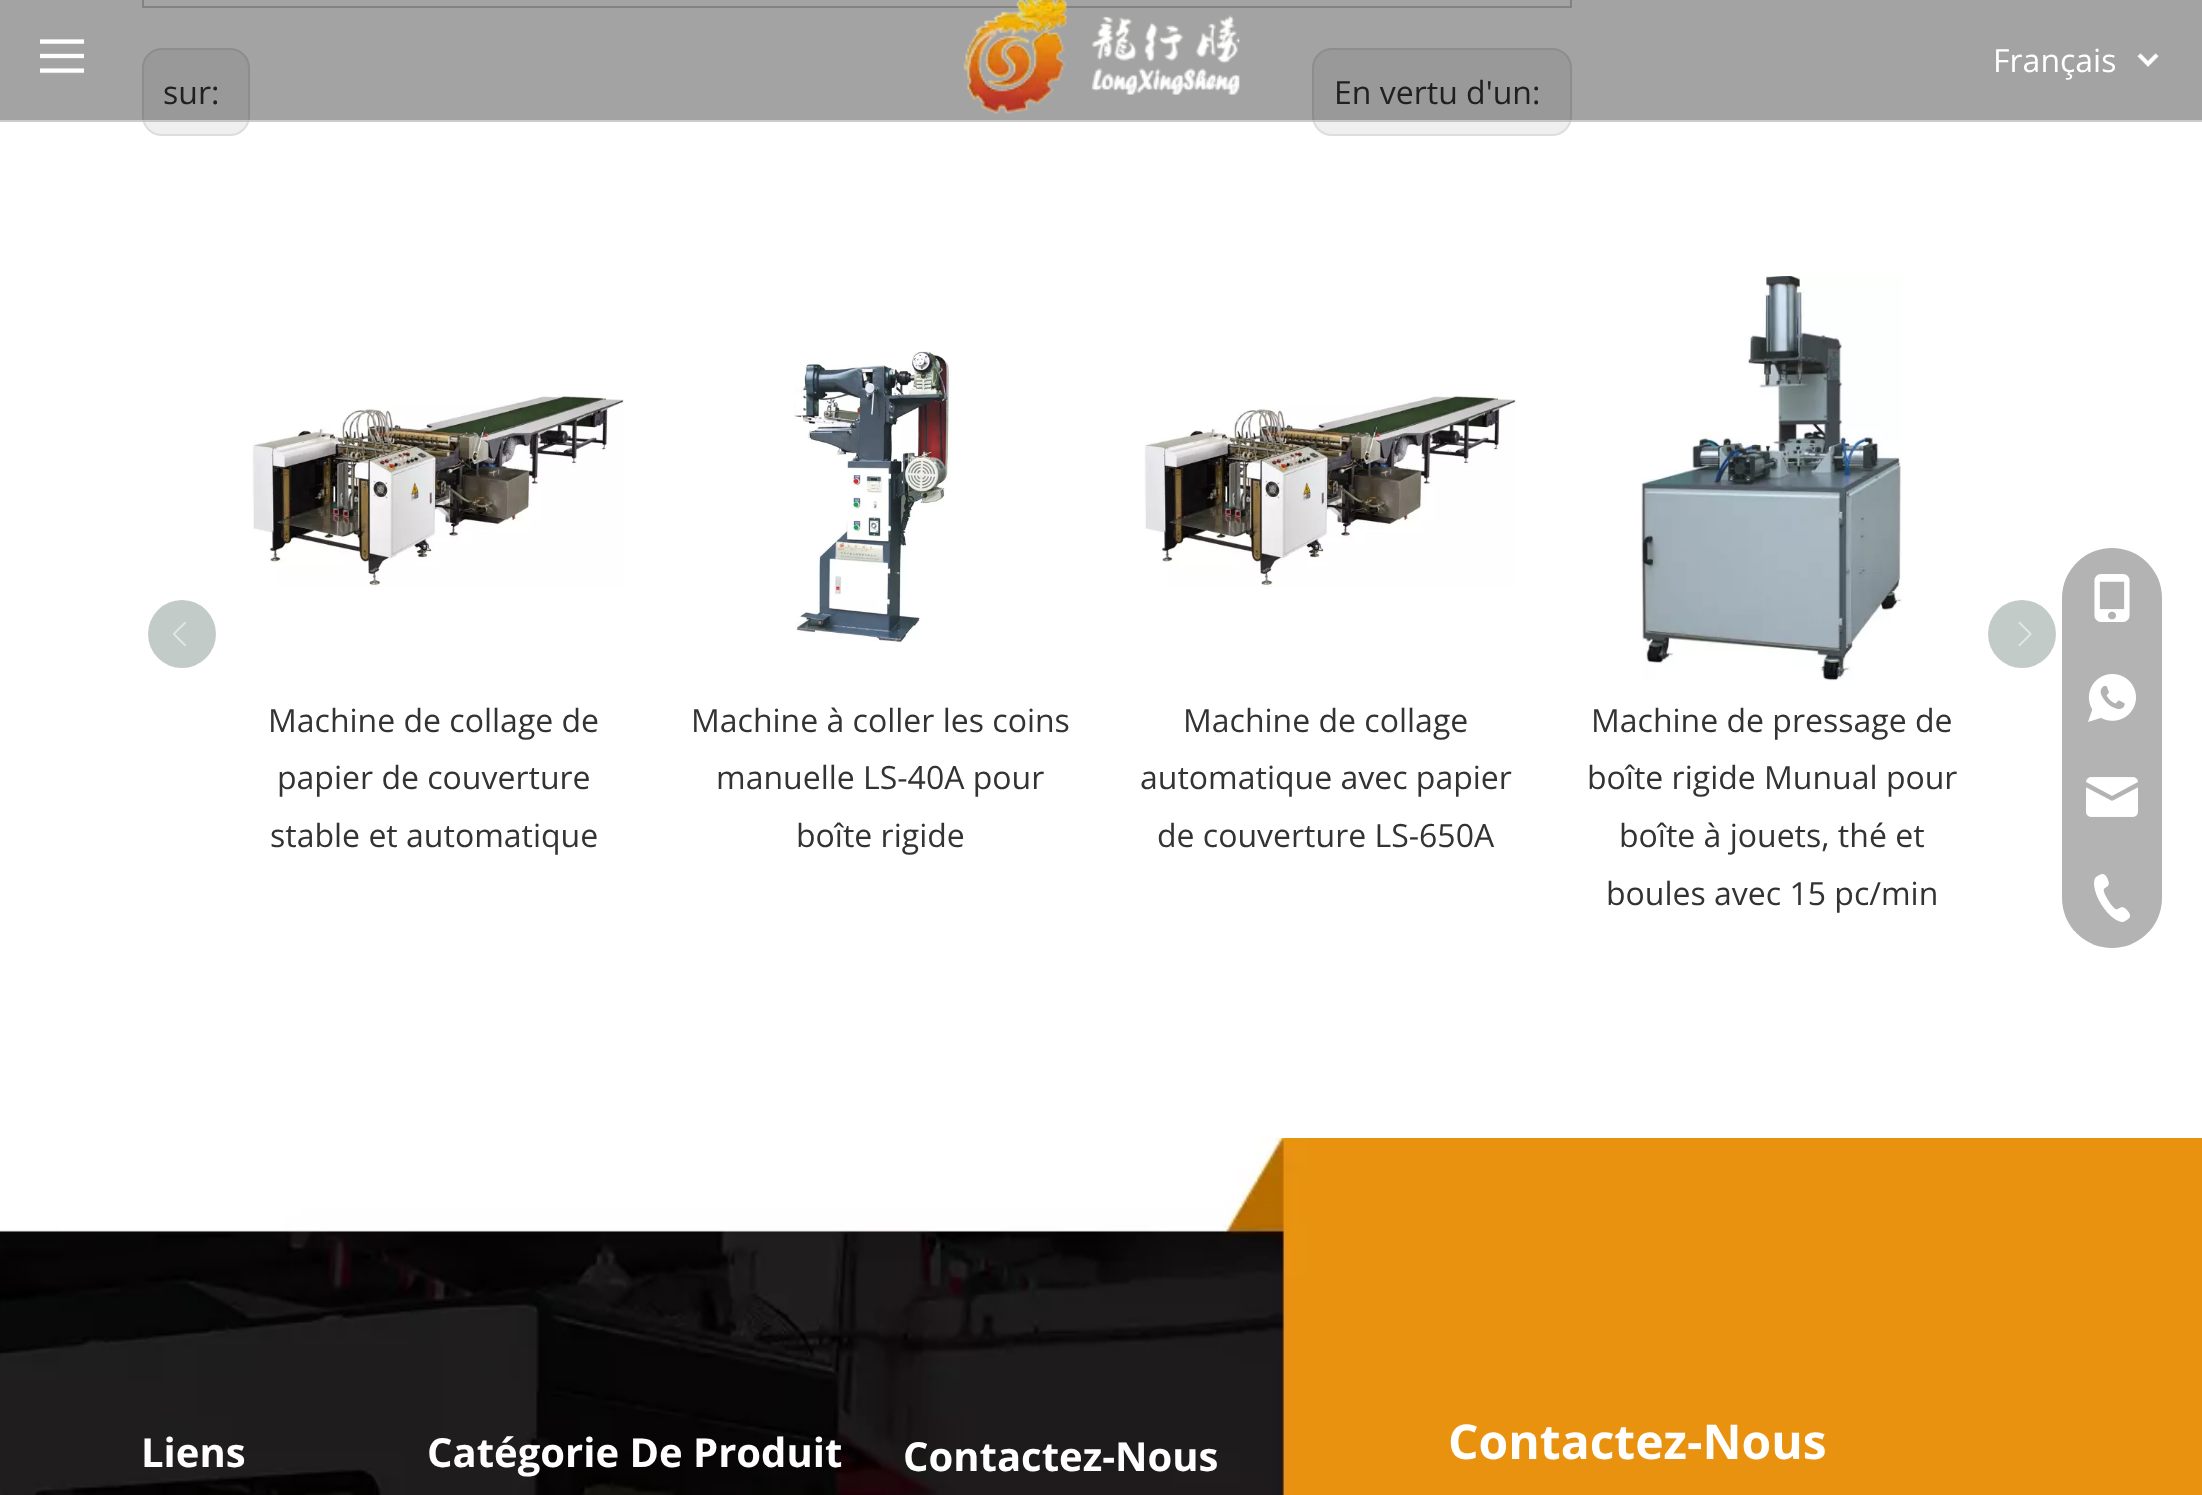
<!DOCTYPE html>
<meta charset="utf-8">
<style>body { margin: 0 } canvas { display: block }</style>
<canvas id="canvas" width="2202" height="1495"></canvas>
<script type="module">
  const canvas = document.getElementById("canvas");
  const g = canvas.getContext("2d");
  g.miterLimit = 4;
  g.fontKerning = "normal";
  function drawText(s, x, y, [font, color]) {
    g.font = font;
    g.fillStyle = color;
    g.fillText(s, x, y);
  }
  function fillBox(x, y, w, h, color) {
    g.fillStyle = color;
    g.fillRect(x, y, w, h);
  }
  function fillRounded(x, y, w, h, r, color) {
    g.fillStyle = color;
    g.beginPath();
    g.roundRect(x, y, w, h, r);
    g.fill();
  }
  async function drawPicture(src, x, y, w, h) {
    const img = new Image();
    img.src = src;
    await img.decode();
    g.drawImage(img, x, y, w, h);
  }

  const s1 = ["32px Open Sans", "#333333"];
  const s2 = ["32px Open Sans", "#FFFFFF"];
  const s3 = ["bold 40px Open Sans", "#FFFFFF"];
  const s4 = ["bold 48px Open Sans", "#FFFFFF"];

  fillBox(0, 0, 2202, 1495, "#FFFFFF");
  g.strokeStyle = "#CCCCCC";
  g.lineWidth = 2;
  g.strokeRect(143, -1, 1428, 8);
  g.fillStyle = "#EFEFEF";
  g.beginPath();
  g.roundRect(143, 49, 106, 86, 19);
  g.fill();
  g.strokeStyle = "#DDDDDD";
  g.stroke();
  drawText("sur:", 163, 104, s1);
  g.fillStyle = "#EFEFEF";
  g.beginPath();
  g.roundRect(1313, 49, 258, 86, 19);
  g.fill();
  g.stroke();
  drawText("En vertu d'un:", 1334, 104, s1);
  fillBox(0, 0, 2202, 122, "rgba(0, 0, 0, 0.36)");
  fillBox(0, 120, 2202, 2, "rgba(255, 255, 255, 0.45)");
  await drawPicture("pic1.png", 963, 0, 277, 114);
  await drawPicture("pic2.png", 40, 39, 44, 35);
  drawText("Français", 1993, 72, s2);
  await drawPicture("pic3.png", 2137, 53, 22, 14);
  g.fillStyle = "#C3CBC8";
  g.beginPath();
  g.arc(182, 634, 34, 0, Math.PI * 2);
  g.fill();
  await drawPicture("pic4.png", 173, 622, 13, 24);
  g.beginPath();
  g.arc(2022, 634, 34, 0, Math.PI * 2);
  g.fill();
  await drawPicture("pic5.png", 2018, 621, 14, 26);
  await drawPicture("pic6.png", 252, 396, 372, 191);
  drawText("Machine de collage de", 268, 732, s1);
  drawText("papier de couverture", 277, 789, s1);
  drawText("stable et automatique", 270, 847, s1);
  await drawPicture("pic7.png", 794, 351, 157, 292);
  drawText("Machine à coller les coins", 691, 732, s1);
  drawText("manuelle LS-40A pour", 716, 789, s1);
  drawText("boîte rigide", 796, 847, s1);
  await drawPicture("pic6.png", 1144, 396, 372, 191);
  drawText("Machine de collage", 1183, 732, s1);
  drawText("automatique avec papier", 1140, 789, s1);
  drawText("de couverture LS-650A", 1157, 847, s1);
  await drawPicture("pic8.png", 1641, 276, 261, 405);
  drawText("Machine de pressage de", 1591, 732, s1);
  drawText("boîte rigide Munual pour", 1587, 789, s1);
  drawText("boîte à jouets, thé et", 1619, 847, s1);
  drawText("boules avec 15 pc/min", 1606, 905, s1);
  await drawPicture("pic9.png", 0, 1138, 2202, 357);
  fillRounded(2062, 548, 100, 400, 50, "#B3B3B3");
  await drawPicture("pic10.png", 2094, 574, 36, 48);
  await drawPicture("pic11.png", 2088, 674, 48, 48);
  await drawPicture("pic12.png", 2086, 777, 52, 40);
  await drawPicture("pic13.png", 2094, 874, 36, 48);
  drawText("Liens", 141, 1467, s3);
  drawText("Catégorie De Produit", 427, 1467, s3);
  drawText("Contactez-Nous", 903, 1471, s3);
  drawText("Contactez-Nous", 1448, 1459, s4);
</script>
